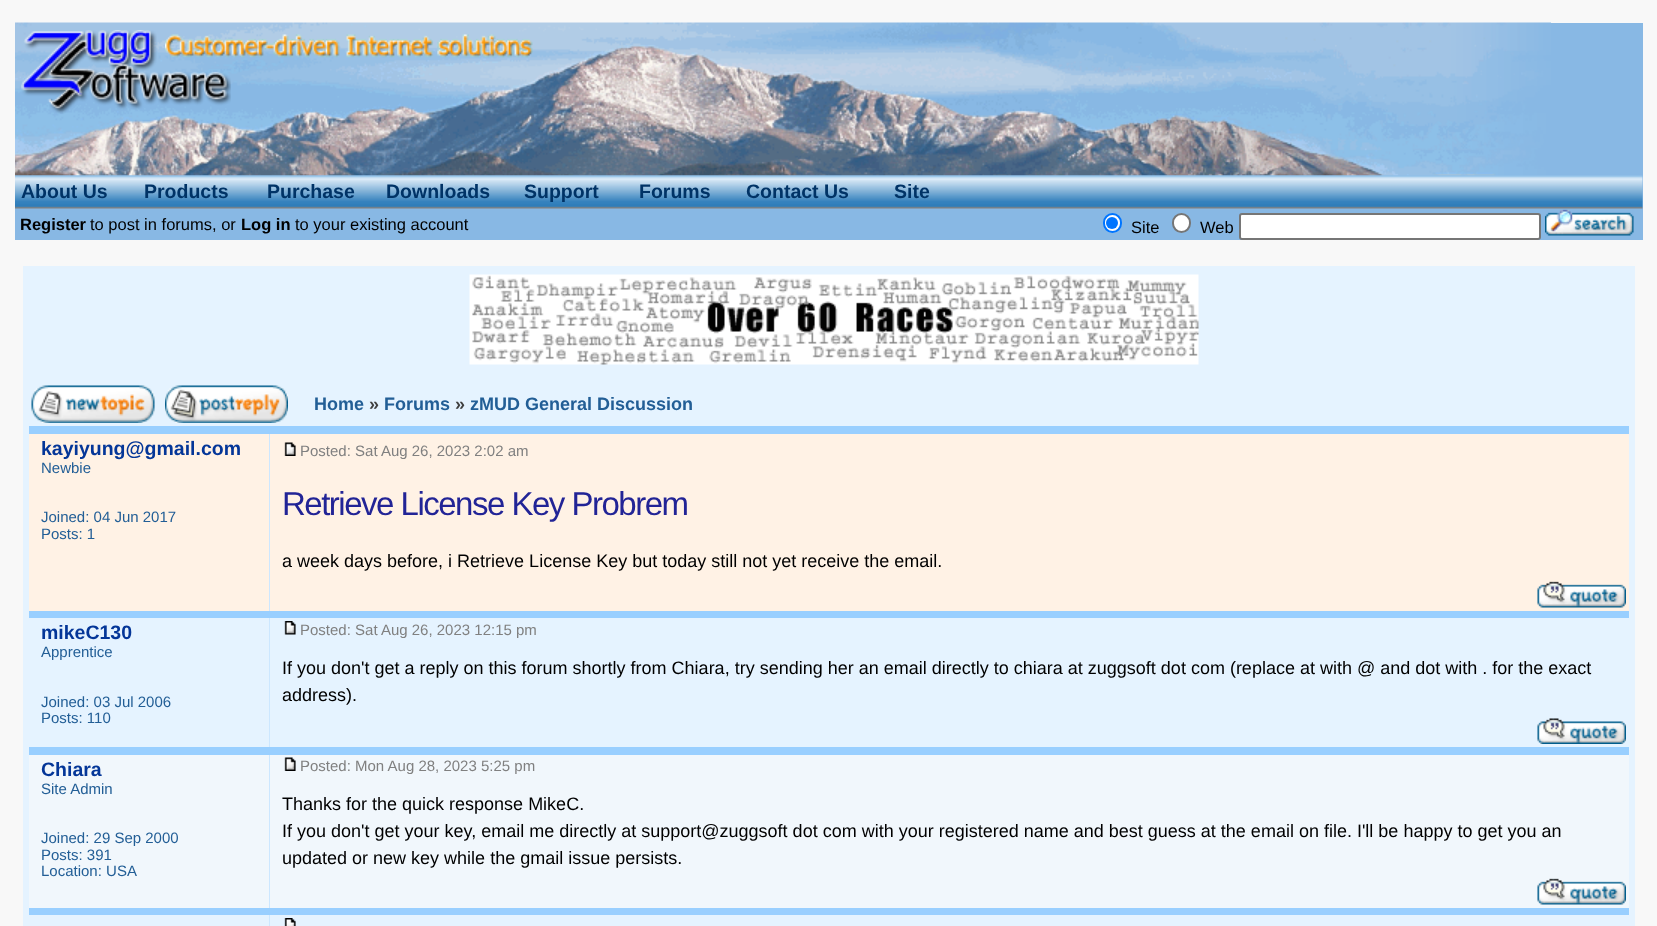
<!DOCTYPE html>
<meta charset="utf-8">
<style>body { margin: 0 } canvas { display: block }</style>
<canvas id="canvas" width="1657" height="926"></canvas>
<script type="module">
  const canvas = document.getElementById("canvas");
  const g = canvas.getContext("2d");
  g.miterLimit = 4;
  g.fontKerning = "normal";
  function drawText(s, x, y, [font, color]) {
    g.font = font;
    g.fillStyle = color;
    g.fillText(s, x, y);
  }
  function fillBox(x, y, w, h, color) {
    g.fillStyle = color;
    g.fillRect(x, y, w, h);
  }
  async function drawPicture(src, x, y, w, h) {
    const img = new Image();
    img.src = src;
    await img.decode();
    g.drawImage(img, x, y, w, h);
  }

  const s1 = ["bold 19.5px Liberation Sans", "#003366"];
  const s2 = ["bold 16.5px Liberation Sans", "#000000"];
  const s3 = ["16.5px Liberation Sans", "#000000"];
  const s4 = ["bold 18px Liberation Sans", "#225E96"];
  const s5 = ["bold 18px Liberation Sans", "#404040"];
  const s6 = ["bold 19.5px Liberation Sans", "#043698"];
  const s7 = ["15px Liberation Sans", "#225E96"];
  const s8 = ["15px Liberation Sans", "#808080"];
  const s9 = ["33px Liberation Sans", "#222496"];
  const s10 = ["18px Liberation Sans", "#000000"];

  fillBox(0, 0, 1657, 926, "#F8F8F8");
  fillBox(15, 23, 1628, 217, "#88B8E4");
  await drawPicture("pic1.png", 15, 22, 1536, 154);
  await drawPicture("pic2.png", 21, 30, 210, 84);
  await drawPicture("pic3.png", 165, 34, 368, 24);
  await drawPicture("pic4.png", 15, 175, 1628, 34);
  drawText("About Us", 21, 198, s1);
  drawText("Products", 144, 198, s1);
  drawText("Purchase", 267, 198, s1);
  drawText("Downloads", 386, 198, s1);
  drawText("Support", 524, 198, s1);
  drawText("Forums", 639, 198, s1);
  drawText("Contact Us", 746, 198, s1);
  drawText("Site", 894, 198, s1);
  drawText("Register", 20, 230, s2);
  drawText("to post in forums, or", 90, 230, s3);
  drawText("Log in", 241, 230, s2);
  drawText("to your existing account", 295, 230, s3);
  g.fillStyle = "#FFFFFF";
  g.beginPath();
  g.roundRect(1104, 214, 17, 18, 8.5);
  g.fill();
  g.strokeStyle = "#0075FF";
  g.lineWidth = 2;
  g.stroke();
  g.fillStyle = "#0075FF";
  g.beginPath();
  g.arc(1112, 223, 6, 0, Math.PI * 2);
  g.fill();
  drawText("Site", 1131, 233, s3);
  g.fillStyle = "#FFFFFF";
  g.beginPath();
  g.roundRect(1173, 214, 17, 18, 8.5);
  g.fill();
  g.strokeStyle = "#767676";
  g.stroke();
  drawText("Web", 1200, 233, s3);
  g.fillStyle = "#FFFFFF";
  g.beginPath();
  g.roundRect(1240, 214, 300, 25, 2);
  g.fill();
  g.stroke();
  await drawPicture("pic5.png", 1545, 209, 89, 27);
  fillBox(23, 266, 1612, 660, "#E5F3FF");
  await drawPicture("pic6.png", 469, 274, 730, 91);
  await drawPicture("pic7.png", 31, 385, 124, 38);
  await drawPicture("pic8.png", 165, 385, 123, 38);
  drawText("Home", 314, 410, s4);
  drawText("»", 369, 410, s5);
  drawText("Forums", 384, 410, s4);
  drawText("»", 455, 410, s5);
  drawText("zMUD General Discussion", 470, 410, s4);
  fillBox(29, 426, 1600, 8, "#99CFFF");
  fillBox(29, 434, 240, 177, "#FFF2E5");
  fillBox(269, 434, 1, 177, "#CCE7FF");
  drawText("kayiyung@gmail.com", 41, 455, s6);
  drawText("Newbie", 41, 473, s7);
  drawText("Joined: 04 Jun 2017", 41, 522, s7);
  drawText("Posts: 1", 41, 539, s7);
  fillBox(270, 434, 1359, 177, "#FFF2E5");
  await drawPicture("pic9.png", 284, 442, 12, 14);
  drawText("Posted: Sat Aug 26, 2023 2:02 am", 300, 456, s8);
  g.letterSpacing = "-1.5px";
  drawText("Retrieve License Key Probrem", 282, 515, s9);
  g.letterSpacing = "0px";
  drawText("a week days before, i Retrieve License Key but today still not yet receive the email.", 282, 567, s10);
  await drawPicture("pic10.png", 1537, 581, 89, 27);
  fillBox(29, 611, 1600, 7, "#99CFFF");
  fillBox(269, 618, 1, 129, "#CCE7FF");
  drawText("mikeC130", 41, 639, s6);
  drawText("Apprentice", 41, 657, s7);
  drawText("Joined: 03 Jul 2006", 41, 707, s7);
  drawText("Posts: 110", 41, 723, s7);
  await drawPicture("pic11.png", 284, 621, 12, 14);
  drawText("Posted: Sat Aug 26, 2023 12:15 pm", 300, 635, s8);
  drawText("If you don't get a reply on this forum shortly from Chiara, try sending her an email directly to chiara at zuggsoft dot com (replace at with @ and dot with . for the exact", 282, 674, s10);
  drawText("address).", 282, 701, s10);
  await drawPicture("pic12.png", 1537, 718, 89, 26);
  fillBox(29, 747, 1600, 8, "#99CFFF");
  fillBox(29, 755, 240, 153, "#F1F7FC");
  fillBox(269, 755, 1, 153, "#CCE7FF");
  drawText("Chiara", 41, 776, s6);
  drawText("Site Admin", 41, 794, s7);
  drawText("Joined: 29 Sep 2000", 41, 843, s7);
  drawText("Posts: 391", 41, 860, s7);
  drawText("Location: USA", 41, 876, s7);
  fillBox(270, 755, 1359, 153, "#F1F7FC");
  await drawPicture("pic13.png", 284, 757, 12, 14);
  drawText("Posted: Mon Aug 28, 2023 5:25 pm", 300, 771, s8);
  drawText("Thanks for the quick response MikeC.", 282, 810, s10);
  drawText("If you don't get your key, email me directly at support@zuggsoft dot com with your registered name and best guess at the email on file. I'll be happy to get you an", 282, 837, s10);
  drawText("updated or new key while the gmail issue persists.", 282, 864, s10);
  await drawPicture("pic14.png", 1537, 878, 89, 27);
  fillBox(29, 908, 1600, 7, "#99CFFF");
  fillBox(269, 915, 1, 11, "#CCE7FF");
  await drawPicture("pic15.png", 284, 918, 12, 8);
</script>
